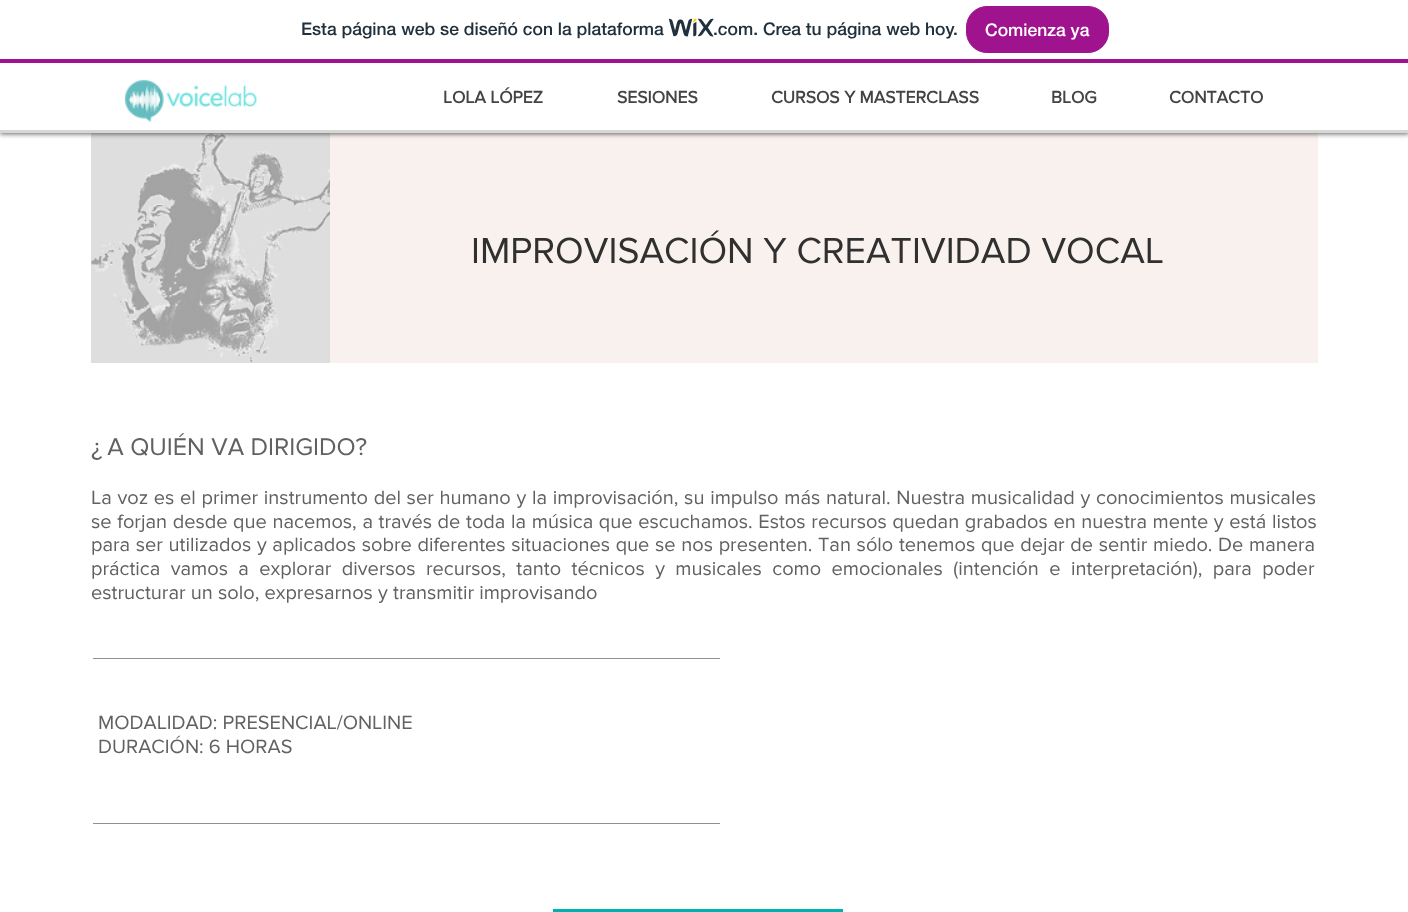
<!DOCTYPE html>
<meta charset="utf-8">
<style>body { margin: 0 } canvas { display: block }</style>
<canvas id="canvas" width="1408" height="912"></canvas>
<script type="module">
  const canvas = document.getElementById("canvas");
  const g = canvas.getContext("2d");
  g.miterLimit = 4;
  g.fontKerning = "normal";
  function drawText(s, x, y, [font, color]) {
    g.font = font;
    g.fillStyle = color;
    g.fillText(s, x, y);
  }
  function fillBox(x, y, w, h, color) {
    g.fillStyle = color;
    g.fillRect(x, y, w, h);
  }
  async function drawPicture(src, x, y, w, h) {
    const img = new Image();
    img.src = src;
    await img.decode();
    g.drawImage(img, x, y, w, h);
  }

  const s1 = ["500 17.5px 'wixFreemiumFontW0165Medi'", "#20303C"];
  const s2 = ["500 17.5px 'wixFreemiumFontW0165Medi'", "#FFFFFF"];
  const s3 = ["bold 17.5px 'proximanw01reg'", "#454343"];
  const s4 = ["37.5px 'proximanw01reg'", "#303030"];
  const s5 = ["25px 'proximanw01reg'", "#616161"];
  const s6 = ["20px 'proximanw01reg'", "#616161"];

  fillBox(0, 0, 1408, 912, "#FFFFFF");
  fillBox(91, 133, 239, 230, "#DEDEDE");
  await drawPicture("pic3.png", 91, 133, 239, 230);
  fillBox(330, 133, 988, 230, "#F9F1EE");
  g.fillStyle = "rgba(0, 0, 0, 0.6)";
  g.filter = "blur(2.5px)";
  g.beginPath();
  g.rect(0, 64, 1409, 70);
  g.fill();
  g.filter = "none";
  fillBox(0, 59, 1408, 4, "#A0138E");
  drawText("Esta página web se diseñó con la plataforma", 301, 35, s1);
  await drawPicture("pic1.png", 669, 18, 45, 19);
  drawText(".com. Crea tu página web hoy.", 713, 35, s1);
  g.fillStyle = "#A0138E";
  g.beginPath();
  g.roundRect(966.5, 6.5, 142, 46, 20.5);
  g.fill();
  g.strokeStyle = "#A0138E";
  g.stroke();
  drawText("Comienza ya", 985, 36, s2);
  fillBox(0, 63, 1408, 67, "#FFFFFF");
  fillBox(0, 130, 1408, 3, "#D7D7D7");
  await drawPicture("pic2.png", 124, 79, 134, 44);
  drawText("LOLA LÓPEZ", 443, 103, s3);
  drawText("SESIONES", 617, 103, s3);
  drawText("CURSOS Y MASTERCLASS", 771, 103, s3);
  drawText("BLOG", 1051, 103, s3);
  drawText("CONTACTO", 1169, 103, s3);
  drawText("IMPROVISACIÓN Y CREATIVIDAD VOCAL", 471, 263, s4);
  drawText("¿ A QUIÉN VA DIRIGIDO?", 91, 455, s5);
  g.wordSpacing = "0.55px";
  drawText("La voz es el primer instrumento del ser humano y la improvisación, su impulso más natural. Nuestra musicalidad y conocimientos musicales", 91, 504, s6);
  g.wordSpacing = "0.5px";
  drawText("se forjan desde que nacemos, a través de toda la música que escuchamos. Estos recursos quedan grabados en nuestra mente y está listos", 91, 528, s6);
  drawText("para ser utilizados y aplicados sobre diferentes situaciones que se nos presenten. Tan sólo tenemos que dejar de sentir miedo. De manera", 91, 551, s6);
  g.wordSpacing = "5.25px";
  drawText("práctica vamos a explorar diversos recursos, tanto técnicos y musicales como emocionales (intención e interpretación), para poder", 91, 575, s6);
  g.wordSpacing = "0px";
  drawText("estructurar un solo, expresarnos y transmitir improvisando", 91, 599, s6);
  fillBox(93, 658, 627, 1, "#919191");
  drawText("MODALIDAD: PRESENCIAL/ONLINE", 98, 729, s6);
  drawText("DURACIÓN: 6 HORAS", 98, 753, s6);
  fillBox(93, 823, 627, 1, "#919191");
  g.fillStyle = "rgba(0, 0, 0, 0.2)";
  g.filter = "blur(4px)";
  g.beginPath();
  g.rect(553, 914, 290, 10);
  g.fill();
  g.filter = "none";
  fillBox(553, 909, 290, 3, "#01B1AF");
</script>
